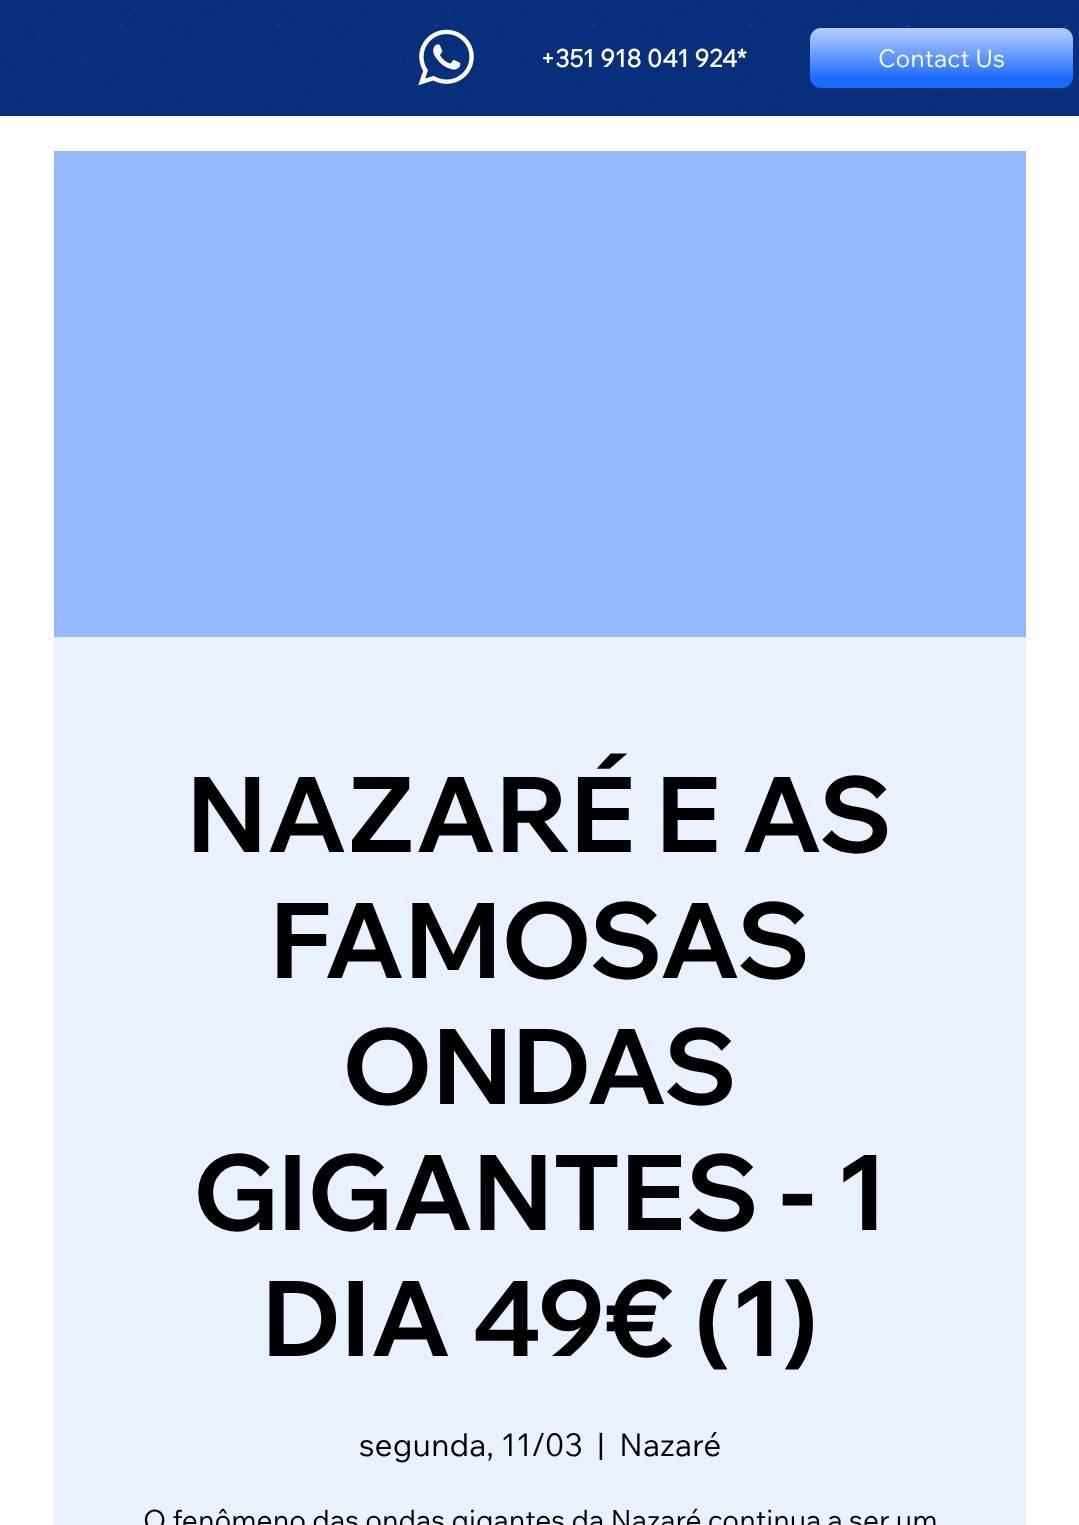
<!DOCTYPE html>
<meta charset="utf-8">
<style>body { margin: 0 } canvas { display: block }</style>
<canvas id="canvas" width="1079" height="1525"></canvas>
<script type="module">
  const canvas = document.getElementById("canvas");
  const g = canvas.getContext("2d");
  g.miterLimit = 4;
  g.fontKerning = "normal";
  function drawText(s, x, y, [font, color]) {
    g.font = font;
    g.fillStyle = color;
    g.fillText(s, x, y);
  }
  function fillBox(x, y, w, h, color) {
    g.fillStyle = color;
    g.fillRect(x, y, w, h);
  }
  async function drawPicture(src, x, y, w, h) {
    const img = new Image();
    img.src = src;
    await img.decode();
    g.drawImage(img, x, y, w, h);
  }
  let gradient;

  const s1 = ["bold 24.25px Wix Madefor Text", "#FFFFFF"];
  const s2 = ["24.5px Wix Madefor Text", "#FFFFFF"];
  const s3 = ["bold 105px Wix Madefor Display", "#000000"];
  const s4 = ["31.5px Wix Madefor Text", "#000000"];
  const s5 = ["28px Wix Madefor Text", "#000000"];

  fillBox(0, 0, 1079, 1525, "#FFFFFF");
  fillBox(0, 0, 1079, 116, "#082F7B");
  await drawPicture("pic1.png", 0, 1, 1079, 114);
  await drawPicture("pic2.png", 418, 29, 56, 57);
  drawText("+351 918 041 924*", 540, 67, s1);
  gradient = g.createLinearGradient(942, 28, 942, 88);
  gradient.addColorStop(0, "#B2CCFF");
  gradient.addColorStop(0.2, "#95B9FF");
  gradient.addColorStop(0.85, "#1A6AFF");
  g.fillStyle = gradient;
  g.beginPath();
  g.roundRect(810, 28, 263, 60, 11);
  g.fill();
  drawText("Contact Us", 878, 67, s2);
  fillBox(54, 637, 972, 888, "#E9F1FF");
  fillBox(54, 151, 972, 486, "#95B9FF");
  drawText("NAZARÉ E AS", 187, 852, s3);
  drawText("FAMOSAS", 270, 978, s3);
  drawText("ONDAS", 342, 1104, s3);
  drawText("GIGANTES - 1", 193, 1230, s3);
  drawText("DIA 49€ (1)", 262, 1356, s3);
  drawText("segunda, 11/03", 359, 1456, s4);
  drawText("|", 597, 1456, s4);
  drawText("Nazaré", 619, 1456, s4);
  drawText("O fenômeno das ondas gigantes da Nazaré continua a ser um", 143, 1530, s5);
</script>
